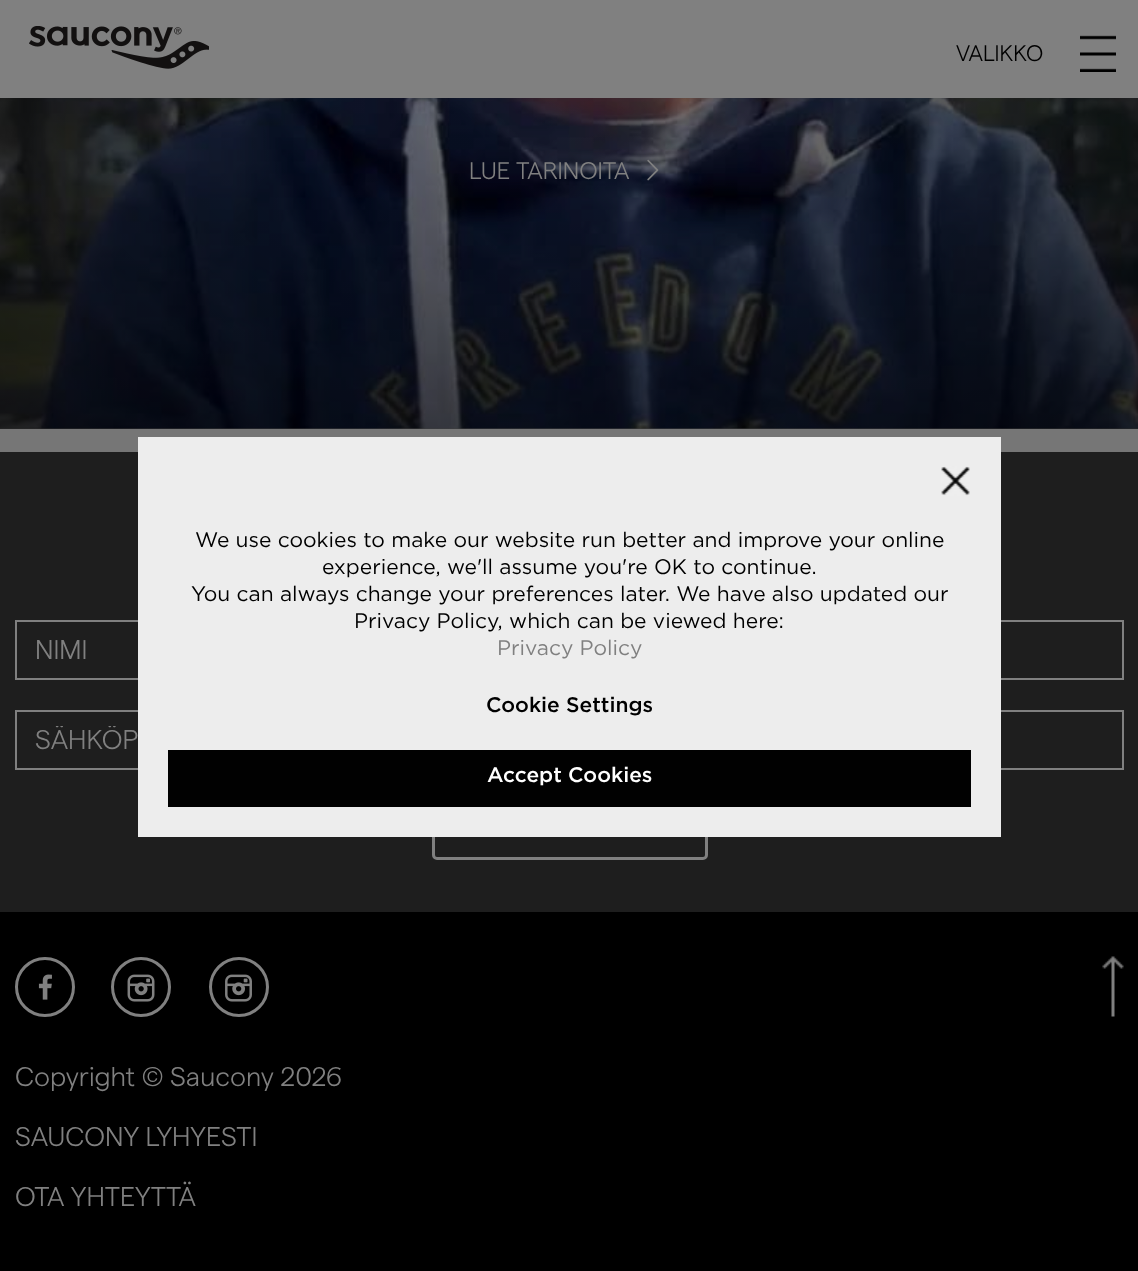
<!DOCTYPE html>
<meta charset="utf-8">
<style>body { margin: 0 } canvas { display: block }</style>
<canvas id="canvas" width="1138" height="1271"></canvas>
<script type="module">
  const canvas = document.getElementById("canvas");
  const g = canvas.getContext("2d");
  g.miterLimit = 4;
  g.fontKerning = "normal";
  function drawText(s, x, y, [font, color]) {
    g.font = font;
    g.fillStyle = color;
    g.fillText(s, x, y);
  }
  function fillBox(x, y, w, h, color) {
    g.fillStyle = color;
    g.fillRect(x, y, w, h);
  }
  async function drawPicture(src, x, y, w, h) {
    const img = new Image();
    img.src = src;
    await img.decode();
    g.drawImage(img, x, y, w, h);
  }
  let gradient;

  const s1 = ["300 22.5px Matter", "#000000"];
  const s2 = ["300 24px Matter", "#808080"];
  const s3 = ["300 27px Matter", "#808080"];
  const s4 = ["21px Gotham", "#000000"];
  const s5 = ["21px Gotham", "#808080"];
  const s6 = ["500 21px Gotham", "#000000"];
  const s7 = ["500 21px Gotham", "#FFFFFF"];

  fillBox(0, 0, 1138, 1271, "#000000");
  fillBox(0, 0, 1138, 98, "#808080");
  await drawPicture("pic1.png", 29, 26, 180, 43);
  drawText("VALIKKO", 956, 61, s1);
  await drawPicture("pic2.png", 1080, 35, 36, 37);
  fillBox(0, 428, 1138, 24, "#767676");
  await drawPicture("pic3.png", 0, 98, 1138, 331);
  gradient = g.createRadialGradient(569, 170.65, 0, 569, 170.65, 805);
  gradient.addColorStop(0, "rgba(0, 0, 0, 0)");
  gradient.addColorStop(1, "rgba(0, 0, 0, 0.65)");
  g.fillStyle = gradient;
  g.beginPath();
  g.rect(0, 98, 1138, 331);
  g.save();
  g.clip();
  g.scale(1, 467 / 805);
  g.fillRect(0, 0, 1138, 2191);
  g.restore();
  drawText("LUE TARINOITA", 469, 179, s2);
  await drawPicture("pic4.png", 647, 159, 12, 22);
  fillBox(0, 452, 1138, 460, "#1E1E1E");
  g.strokeStyle = "#808080";
  g.lineWidth = 2;
  g.strokeRect(16, 621, 1107, 58);
  drawText("NIMI", 35, 659, s3);
  g.strokeRect(16, 711, 1107, 58);
  g.save();
  g.beginPath();
  g.rect(35, 726, 1069, 29);
  g.clip();
  drawText("SÄHKÖP", 35, 749, s3);
  g.restore();
  g.beginPath();
  g.roundRect(433.5, 801.5, 273, 57, 3.5);
  g.lineWidth = 3;
  g.stroke();
  g.beginPath();
  g.arc(45, 987, 28.5, 0, Math.PI * 2);
  g.stroke();
  await drawPicture("pic5.png", 38, 974, 14, 26);
  g.beginPath();
  g.arc(141, 987, 28.5, 0, Math.PI * 2);
  g.stroke();
  await drawPicture("pic6.png", 127, 974, 28, 28);
  g.beginPath();
  g.arc(239, 987, 28.5, 0, Math.PI * 2);
  g.stroke();
  await drawPicture("pic7.png", 225, 974, 27, 28);
  await drawPicture("pic8.png", 1102, 956, 22, 61);
  drawText("Copyright © Saucony 2026", 15, 1086, s3);
  drawText("SAUCONY LYHYESTI", 15, 1146, s3);
  drawText("OTA YHTEYTTÄ", 15, 1206, s3);
  fillBox(138, 437, 863, 400, "#EDEDED");
  drawText("We use cookies to make our website run better and improve your online", 195, 547, s4);
  drawText("experience, we'll assume you're OK to continue.", 322, 574, s4);
  drawText("You can always change your preferences later. We have also updated our", 191, 601, s4);
  drawText("Privacy Policy, which can be viewed here:", 354, 628, s4);
  drawText("Privacy Policy", 497, 655, s5);
  await drawPicture("pic9.png", 941, 466, 29, 30);
  drawText("Cookie Settings", 486, 712, s6);
  fillBox(168, 750, 803, 57, "#010101");
  drawText("Accept Cookies", 487, 782, s7);
</script>
